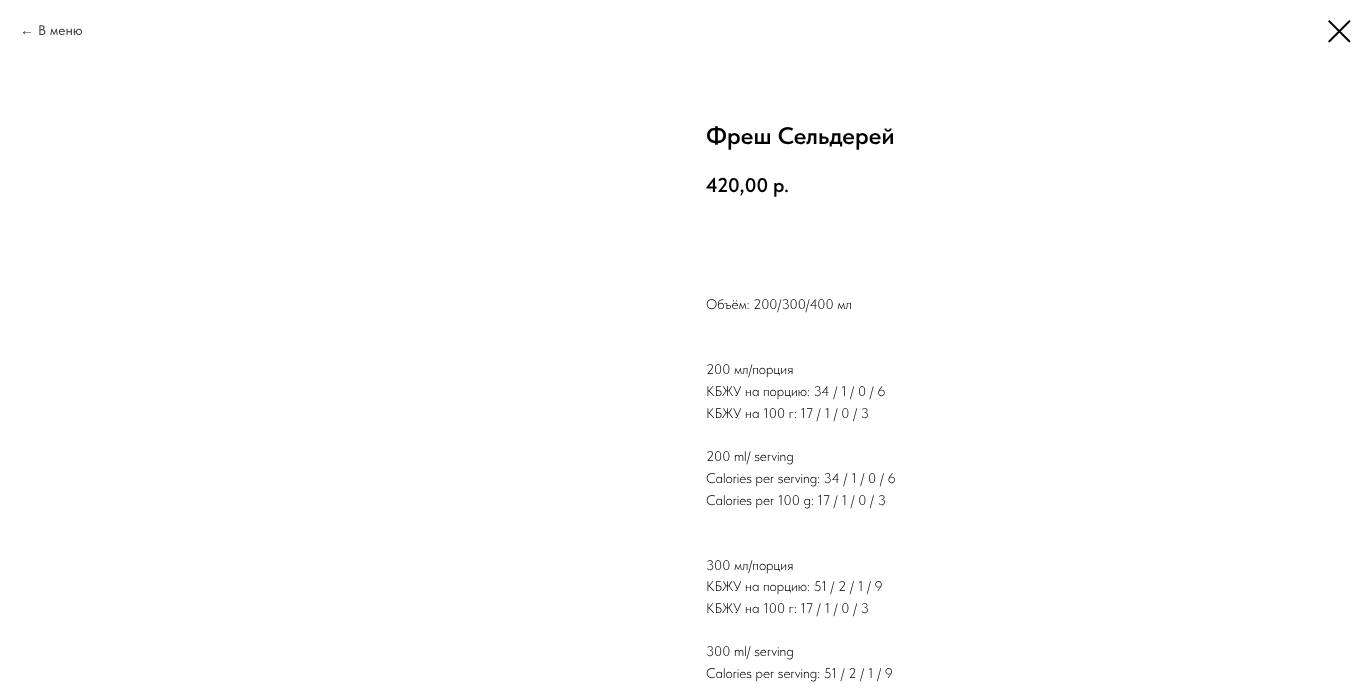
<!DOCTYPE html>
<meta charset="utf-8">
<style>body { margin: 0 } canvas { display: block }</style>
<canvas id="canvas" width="1371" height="688"></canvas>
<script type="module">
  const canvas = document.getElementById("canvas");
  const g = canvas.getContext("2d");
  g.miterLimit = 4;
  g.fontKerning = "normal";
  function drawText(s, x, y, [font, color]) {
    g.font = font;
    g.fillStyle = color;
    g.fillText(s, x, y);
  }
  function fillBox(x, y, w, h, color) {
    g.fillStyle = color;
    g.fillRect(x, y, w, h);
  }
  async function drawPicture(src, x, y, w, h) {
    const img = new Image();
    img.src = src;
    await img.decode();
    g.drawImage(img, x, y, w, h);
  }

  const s1 = ["14px Liberation Sans", "#333333"];
  const s2 = ["14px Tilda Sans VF", "#333333"];
  const s3 = ["600 24px Tilda Sans VF", "#000000"];
  const s4 = ["600 20px Tilda Sans VF", "#000000"];
  const s5 = ["300 14px Tilda Sans VF", "#000000"];

  fillBox(0, 0, 1371, 688, "#FFFFFF");
  drawText("←", 20, 35, s1);
  drawText("В меню", 38, 35, s2);
  await drawPicture("pic1.png", 1328, 20, 23, 23);
  drawText("Фреш Сельдерей", 706, 144, s3);
  drawText("420,00", 706, 192, s4);
  drawText("р.", 773, 192, s4);
  drawText("Объём: 200/300/400 мл", 706, 309, s5);
  drawText("200 мл/порция", 706, 374, s5);
  drawText("КБЖУ на порцию: 34 / 1 / 0 / 6", 706, 396, s5);
  drawText("КБЖУ на 100 г: 17 / 1 / 0 / 3", 706, 418, s5);
  drawText("200 ml/ serving", 706, 461, s5);
  drawText("Calories per serving: 34 / 1 / 0 / 6", 706, 483, s5);
  drawText("Calories per 100 g: 17 / 1 / 0 / 3", 706, 505, s5);
  drawText("300 мл/порция", 706, 570, s5);
  drawText("КБЖУ на порцию: 51 / 2 / 1 / 9", 706, 591, s5);
  drawText("КБЖУ на 100 г: 17 / 1 / 0 / 3", 706, 613, s5);
  drawText("300 ml/ serving", 706, 656, s5);
  drawText("Calories per serving: 51 / 2 / 1 / 9", 706, 678, s5);
</script>
